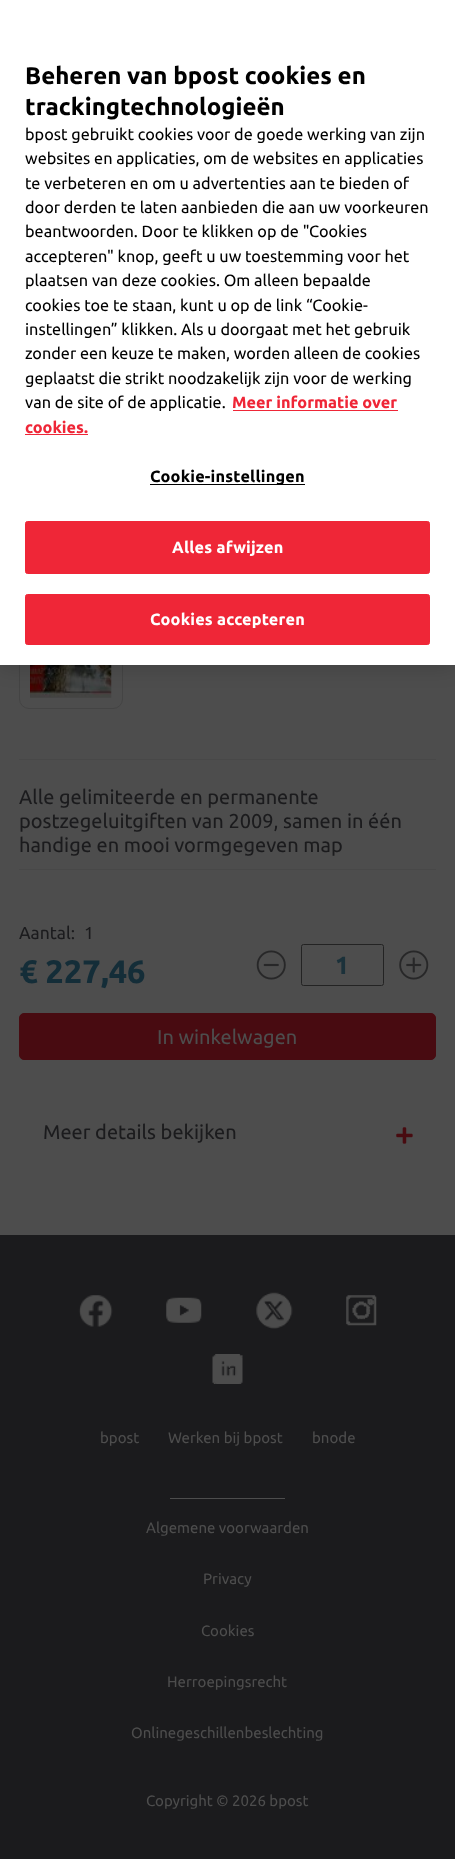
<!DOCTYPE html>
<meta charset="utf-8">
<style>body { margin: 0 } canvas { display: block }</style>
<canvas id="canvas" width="455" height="1859"></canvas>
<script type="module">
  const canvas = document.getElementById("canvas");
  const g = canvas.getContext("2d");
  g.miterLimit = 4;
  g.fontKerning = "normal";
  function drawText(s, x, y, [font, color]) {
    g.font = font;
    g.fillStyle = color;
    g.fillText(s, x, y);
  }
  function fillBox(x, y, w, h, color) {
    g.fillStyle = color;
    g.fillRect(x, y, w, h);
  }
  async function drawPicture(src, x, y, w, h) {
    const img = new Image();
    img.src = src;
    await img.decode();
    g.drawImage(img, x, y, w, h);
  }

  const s1 = ["bold 24px Ubuntu", "#000000"];
  const s2 = ["16.25px Ubuntu", "#000000"];
  const s3 = ["bold 16.25px Ubuntu", "#EF2637"];
  const s4 = ["bold 16.25px Ubuntu", "#000000"];
  const s5 = ["bold 16.25px Ubuntu", "#FFFFFF"];
  const s6 = ["20px Ubuntu", "#1B1B1D"];
  const s7 = ["17.5px Ubuntu", "#1B1B1D"];
  const s8 = ["bold 32.5px Ubuntu", "#142D38"];
  const s9 = ["bold 25px Ubuntu", "#1B313A"];
  const s10 = ["20px Ubuntu", "#4D4D4D"];
  const s11 = ["15px Ubuntu", "#4D4D4D"];

  fillBox(0, 0, 455, 1859, "#4D4D4D");
  g.beginPath();
  g.roundRect(19.5, 605.5, 103, 103, 9.5);
  g.strokeStyle = "#444444";
  g.stroke();
  await drawPicture("pic1.png", 30, 665, 82, 33);
  g.fillStyle = "rgba(0, 0, 0, 0.2)";
  g.filter = "blur(11px)";
  g.beginPath();
  g.rect(0, 0, 455, 665);
  g.fill();
  g.filter = "none";
  fillBox(0, 0, 455, 665, "#FFFFFF");
  drawText("Beheren van bpost cookies en", 25, 84, s1);
  drawText("trackingtechnologieën", 25, 115, s1);
  drawText("bpost gebruikt cookies voor de goede werking van zijn", 25, 140, s2);
  drawText("websites en applicaties, om de websites en applicaties", 25, 164, s2);
  drawText("te verbeteren en om u advertenties aan te bieden of", 25, 189, s2);
  drawText("door derden te laten aanbieden die aan uw voorkeuren", 25, 213, s2);
  drawText("beantwoorden. Door te klikken op de \"Cookies", 25, 237, s2);
  drawText("accepteren\" knop, geeft u uw toestemming voor het", 25, 262, s2);
  drawText("plaatsen van deze cookies. Om alleen bepaalde", 25, 286, s2);
  drawText("cookies toe te staan, kunt u op de link “Cookie-", 25, 311, s2);
  drawText("instellingen” klikken. Als u doorgaat met het gebruik", 25, 335, s2);
  drawText("zonder een keuze te maken, worden alleen de cookies", 25, 359, s2);
  drawText("geplaatst die strikt noodzakelijk zijn voor de werking", 25, 384, s2);
  drawText("van de site of de applicatie.", 25, 408, s2);
  drawText("Meer informatie over", 232, 408, s3);
  fillBox(233, 410, 165, 1, "#EF2637");
  drawText("cookies.", 25, 433, s3);
  fillBox(25, 434, 63, 1, "#EF2637");
  fillBox(150, 484, 155, 1, "#000000");
  g.letterSpacing = "0.2px";
  drawText("Cookie-instellingen", 150, 482, s4);
  g.fillStyle = "#EF2637";
  g.beginPath();
  g.roundRect(25.5, 521.5, 404, 52, 2);
  g.fill();
  g.strokeStyle = "#EF2637";
  g.stroke();
  drawText("Alles afwijzen", 172, 553, s5);
  g.fillStyle = "#EF2637";
  g.beginPath();
  g.roundRect(25.5, 594.5, 404, 50, 2);
  g.fill();
  g.stroke();
  drawText("Cookies accepteren", 150, 625, s5);
  fillBox(19, 759, 417, 1, "#484848");
  fillBox(19, 869, 417, 1, "#484848");
  g.letterSpacing = "0px";
  drawText("Alle gelimiteerde en permanente", 19, 804, s6);
  drawText("postzegeluitgiften van 2009, samen in één", 19, 828, s6);
  drawText("handige en mooi vormgegeven map", 19, 852, s6);
  drawText("Aantal:", 19, 939, s7);
  drawText("1", 84, 939, s7);
  drawText("€ 227,46", 19, 983, s8);
  await drawPicture("pic2.png", 256, 950, 30, 30);
  g.beginPath();
  g.roundRect(301.5, 944.5, 82, 41, 2);
  g.strokeStyle = "#232323";
  g.stroke();
  drawText("1", 335, 974, s9);
  await drawPicture("pic3.png", 399, 950, 30, 30);
  g.fillStyle = "#480B11";
  g.beginPath();
  g.roundRect(19.5, 1013.5, 416, 46, 4.5);
  g.fill();
  g.strokeStyle = "#480B11";
  g.stroke();
  drawText("In winkelwagen", 157, 1044, s10);
  drawText("Meer details bekijken", 43, 1139, s6);
  await drawPicture("pic4.png", 396, 1127, 17, 17);
  fillBox(0, 1235, 455, 624, "#1B1B1D");
  await drawPicture("pic5.png", 78, 1295, 35, 32);
  await drawPicture("pic6.png", 166, 1297, 36, 26);
  await drawPicture("pic7.png", 256, 1292, 37, 37);
  await drawPicture("pic8.png", 346, 1295, 31, 31);
  await drawPicture("pic9.png", 212, 1354, 31, 30);
  drawText("bpost", 100, 1443, s11);
  drawText("Werken bij bpost", 168, 1443, s11);
  drawText("bnode", 312, 1443, s11);
  fillBox(170, 1498, 115, 1, "#4D4D4D");
  drawText("Algemene voorwaarden", 146, 1533, s11);
  drawText("Privacy", 203, 1584, s11);
  drawText("Cookies", 201, 1636, s11);
  drawText("Herroepingsrecht", 167, 1687, s11);
  drawText("Onlinegeschillenbeslechting", 131, 1738, s11);
  drawText("Copyright © 2026 bpost", 146, 1806, s11);
</script>
